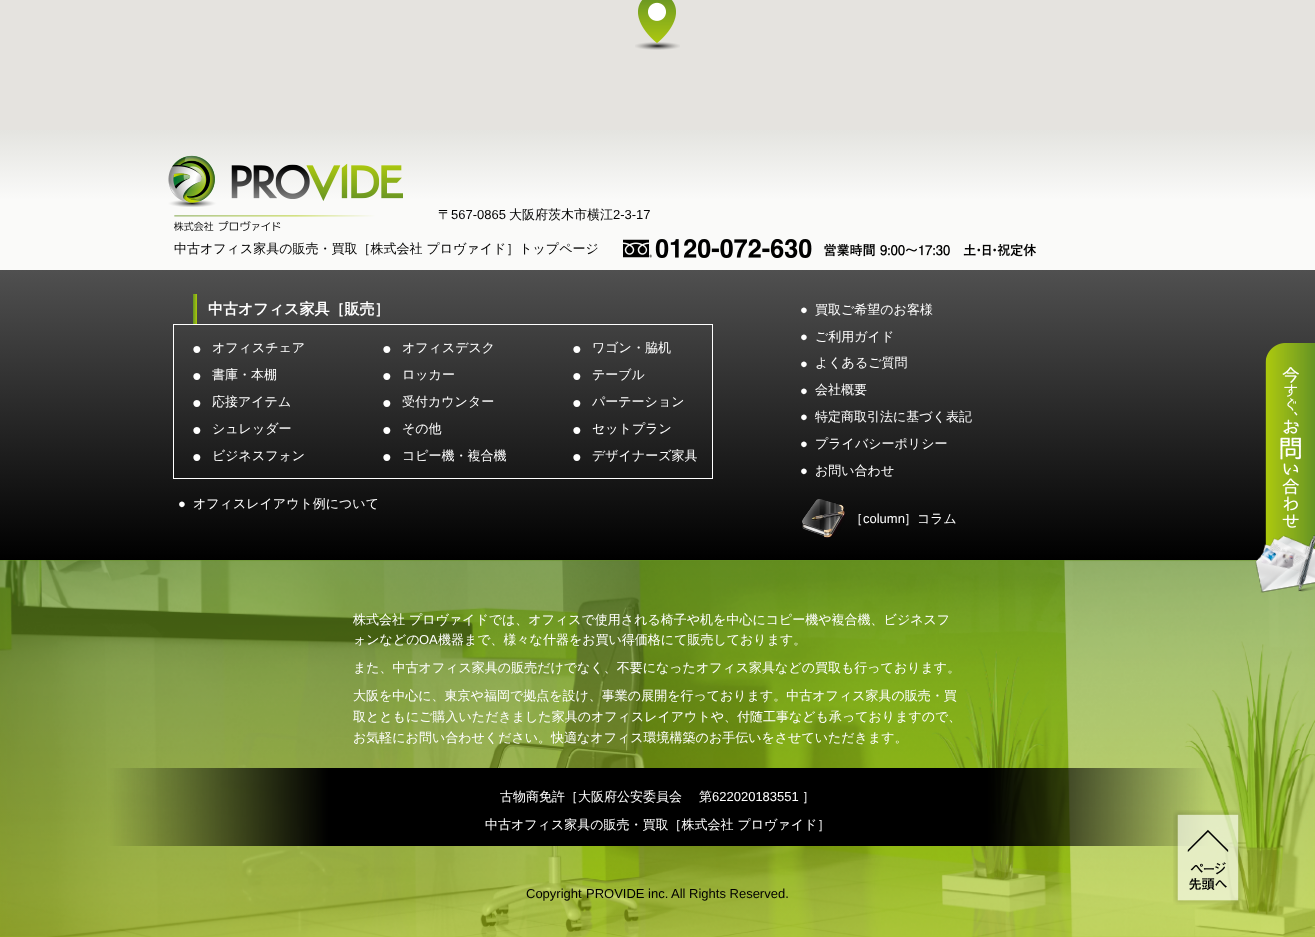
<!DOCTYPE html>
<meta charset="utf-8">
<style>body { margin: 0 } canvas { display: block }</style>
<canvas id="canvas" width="1315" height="937"></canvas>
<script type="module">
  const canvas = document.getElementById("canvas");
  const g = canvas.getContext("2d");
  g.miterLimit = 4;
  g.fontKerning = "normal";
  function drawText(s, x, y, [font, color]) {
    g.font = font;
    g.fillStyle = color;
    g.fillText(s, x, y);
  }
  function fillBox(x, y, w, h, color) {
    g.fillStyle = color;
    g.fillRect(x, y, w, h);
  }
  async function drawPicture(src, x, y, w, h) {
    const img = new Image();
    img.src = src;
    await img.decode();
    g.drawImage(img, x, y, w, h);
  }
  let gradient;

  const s1 = ["500 13px WenQuanYi Zen Hei", "#000000"];
  const s2 = ["13px Liberation Sans", "#000000"];
  const s3 = ["bold 15px WenQuanYi Zen Hei", "#FFFFFF"];
  const s4 = ["16px Liberation Sans", "#FFFFFF"];
  const s5 = ["500 13px WenQuanYi Zen Hei", "#FFFFFF"];
  const s6 = ["13px Liberation Sans", "#FFFFFF"];

  fillBox(0, 0, 1315, 937, "#FFFFFF");
  fillBox(0, 0, 1315, 130, "#E5E3DF");
  await drawPicture("pic1.png", 635, 0, 45, 50);
  gradient = g.createLinearGradient(658, 130, 658, 270);
  gradient.addColorStop(0, "#E4E4E0");
  gradient.addColorStop(0.5, "#FAFAF9");
  gradient.addColorStop(1, "#FAFAF9");
  g.fillStyle = gradient;
  g.fillRect(0, 130, 1315, 140);
  await drawPicture("pic2.png", 168, 155, 235, 76);
  drawText("〒", 438, 219, s1);
  drawText("567-0865", 451, 219, s2);
  drawText("大阪府茨木市横江", 509, 219, s1);
  drawText("2-3-17", 613, 219, s2);
  drawText("中古オフィス家具の販売・買取［株式会社 プロヴァイド］トップページ", 174, 253, s1);
  await drawPicture("pic3.png", 623, 239, 413, 19);
  gradient = g.createLinearGradient(658, 270, 658, 560);
  gradient.addColorStop(0, "#505050");
  gradient.addColorStop(1, "#000000");
  g.fillStyle = gradient;
  g.fillRect(0, 270, 1315, 290);
  gradient = g.createLinearGradient(193, 309, 197, 309);
  gradient.addColorStop(0, "#649323");
  gradient.addColorStop(1, "#ACC90C");
  g.fillStyle = gradient;
  g.fillRect(193, 294, 4, 30);
  drawText("中古オフィス家具［販売］", 208, 314, s3);
  g.strokeStyle = "#FFFFFF";
  g.strokeRect(173.5, 324.5, 539, 154);
  drawText("●", 192, 354, s4);
  drawText("オフィスチェア", 212, 352, s5);
  drawText("●", 382, 354, s4);
  drawText("オフィスデスク", 402, 352, s5);
  drawText("●", 572, 354, s4);
  drawText("ワゴン・脇机", 592, 352, s5);
  drawText("●", 192, 381, s4);
  drawText("書庫・本棚", 212, 379, s5);
  drawText("●", 382, 381, s4);
  drawText("ロッカー", 402, 379, s5);
  drawText("●", 572, 381, s4);
  drawText("テーブル", 592, 379, s5);
  drawText("●", 192, 408, s4);
  drawText("応接アイテム", 212, 406, s5);
  drawText("●", 382, 408, s4);
  drawText("受付カウンター", 402, 406, s5);
  drawText("●", 572, 408, s4);
  drawText("パーテーション", 592, 406, s5);
  drawText("●", 192, 435, s4);
  drawText("シュレッダー", 212, 433, s5);
  drawText("●", 382, 435, s4);
  drawText("その他", 402, 433, s5);
  drawText("●", 572, 435, s4);
  drawText("セットプラン", 592, 433, s5);
  drawText("●", 192, 462, s4);
  drawText("ビジネスフォン", 212, 460, s5);
  drawText("●", 382, 462, s4);
  drawText("コピー機・複合機", 402, 460, s5);
  drawText("●", 572, 462, s4);
  drawText("デザイナーズ家具", 592, 460, s5);
  drawText("●", 178, 508, s6);
  drawText("オフィスレイアウト例について", 193, 508, s5);
  drawText("●", 800, 314, s6);
  drawText("買取ご希望のお客様", 815, 314, s5);
  drawText("●", 800, 341, s6);
  drawText("ご利用ガイド", 815, 341, s5);
  drawText("●", 800, 368, s6);
  drawText("よくあるご質問", 815, 367, s5);
  drawText("●", 800, 395, s6);
  drawText("会社概要", 815, 394, s5);
  drawText("●", 800, 421, s6);
  drawText("特定商取引法に基づく表記", 815, 421, s5);
  drawText("●", 800, 448, s6);
  drawText("プライバシーポリシー", 815, 448, s5);
  drawText("●", 800, 475, s6);
  drawText("お問い合わせ", 815, 475, s5);
  await drawPicture("pic4.png", 802, 499, 43, 39);
  drawText("［", 850, 523, s5);
  drawText("column", 863, 523, s6);
  drawText("］コラム", 904, 523, s5);
  await drawPicture("pic6.png", 0, 560, 1315, 377);
  await drawPicture("pic5.png", 1255, 343, 60, 250);
  drawText("株式会社 プロヴァイドでは、オフィスで使用される椅子や机を中心にコピー機や複合機、ビジネスフ", 353, 624, s5);
  drawText("ォンなどの", 353, 644, s5);
  drawText("OA", 419, 644, s6);
  drawText("機器まで、様々な什器をお買い得価格にて販売しております。", 438, 644, s5);
  drawText("また、中古オフィス家具の販売だけでなく、不要になったオフィス家具などの買取も行っております。", 353, 672, s5);
  drawText("大阪を中心に、東京や福岡で拠点を設け、事業の展開を行っております。中古オフィス家具の販売・買", 353, 700, s5);
  drawText("取とともにご購入いただきました家具のオフィスレイアウトや、付随工事なども承っておりますので、", 353, 721, s5);
  drawText("お気軽にお問い合わせください。快適なオフィス環境構築のお手伝いをさせていただきます。", 353, 742, s5);
  drawText("古物商免許［大阪府公安委員会　 第", 500, 801, s5);
  drawText("622020183551", 712, 801, s6);
  drawText("］", 802, 801, s5);
  drawText("中古オフィス家具の販売・買取［株式会社 プロヴァイド］", 485, 829, s5);
  drawText("Copyright", 526, 898, s2);
  drawText("PROVIDE inc.", 586, 898, s2);
  drawText("All Rights Reserved.", 671, 898, s2);
  await drawPicture("pic7.png", 1173, 810, 70, 95);
</script>
